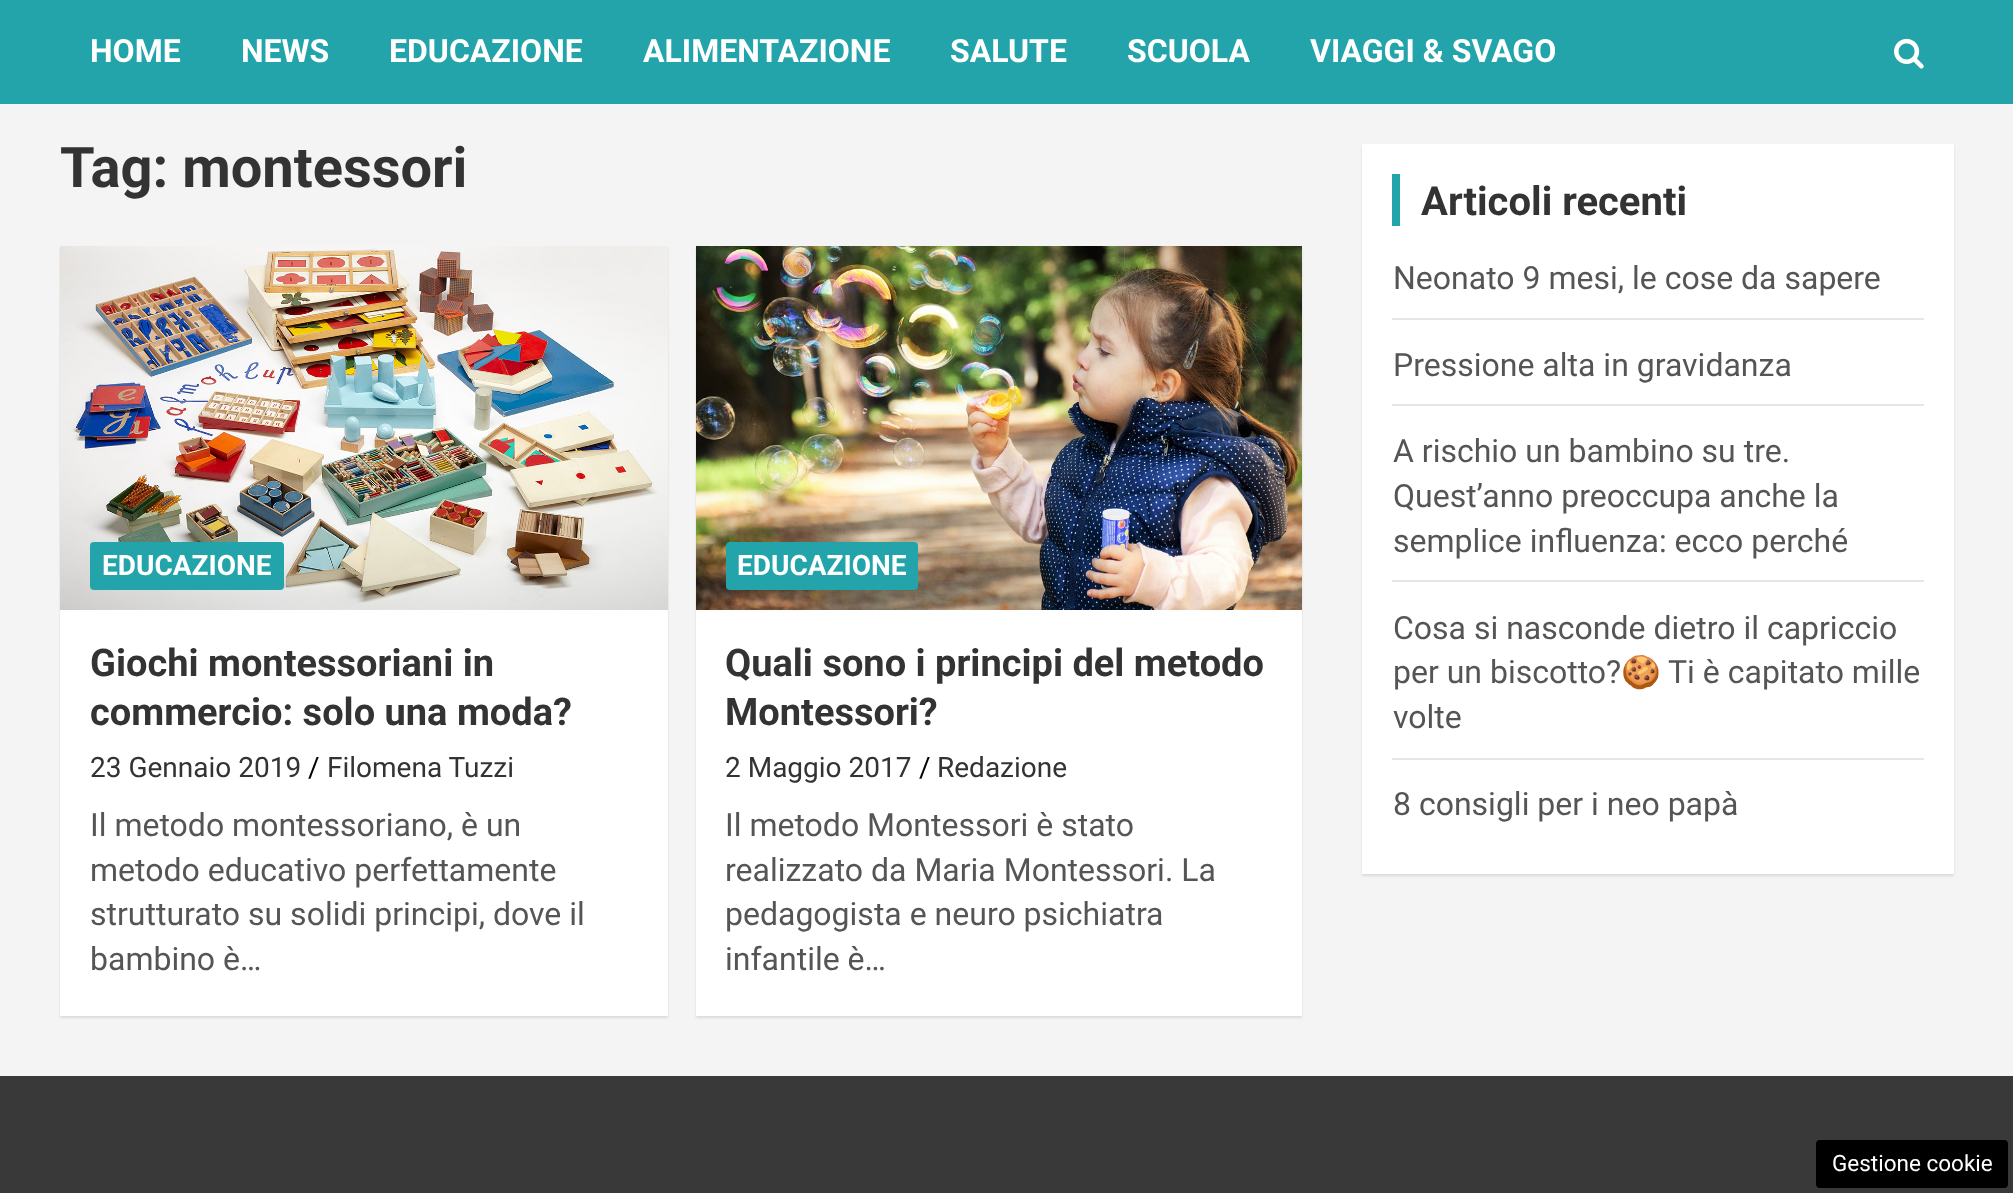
<!DOCTYPE html>
<meta charset="utf-8">
<style>body { margin: 0 } canvas { display: block }</style>
<canvas id="canvas" width="2013" height="1193"></canvas>
<script type="module">
  const canvas = document.getElementById("canvas");
  const g = canvas.getContext("2d");
  g.miterLimit = 4;
  g.fontKerning = "normal";
  function drawText(s, x, y, [font, color]) {
    g.font = font;
    g.fillStyle = color;
    g.fillText(s, x, y);
  }
  function fillBox(x, y, w, h, color) {
    g.fillStyle = color;
    g.fillRect(x, y, w, h);
  }
  function fillRounded(x, y, w, h, r, color) {
    g.fillStyle = color;
    g.beginPath();
    g.roundRect(x, y, w, h, r);
    g.fill();
  }
  async function drawPicture(src, x, y, w, h) {
    const img = new Image();
    img.src = src;
    await img.decode();
    g.drawImage(img, x, y, w, h);
  }

  const s1 = ["bold 32px Roboto", "#FFFFFF"];
  const s2 = ["bold 56px Roboto", "#333333"];
  const s3 = ["bold 28px Roboto", "#FFFFFF"];
  const s4 = ["bold 38px Roboto", "#333333"];
  const s5 = ["28px Roboto", "#333333"];
  const s6 = ["28px Roboto", "#000000"];
  const s7 = ["32px Roboto", "#555555"];
  const s8 = ["bold 40px Roboto", "#333333"];
  const s9 = ["32px Noto Color Emoji", "#555555"];
  const s10 = ["22.5px Roboto", "#FFFFFF"];

  fillBox(0, 0, 2013, 1193, "#F4F4F4");
  fillBox(0, 0, 2013, 104, "#23A4AA");
  drawText("HOME", 90, 62, s1);
  drawText("NEWS", 241, 62, s1);
  drawText("EDUCAZIONE", 389, 62, s1);
  drawText("ALIMENTAZIONE", 643, 62, s1);
  drawText("SALUTE", 950, 62, s1);
  drawText("SCUOLA", 1127, 62, s1);
  drawText("VIAGGI & SVAGO", 1310, 62, s1);
  await drawPicture("pic1.png", 1894, 38, 30, 31);
  drawText("Tag: montessori", 60, 187, s2);
  g.fillStyle = "rgba(0, 0, 0, 0.1)";
  g.filter = "blur(1px)";
  g.beginPath();
  g.rect(60, 248, 608, 770);
  g.fill();
  g.filter = "none";
  fillBox(60, 610, 608, 406, "#FFFFFF");
  await drawPicture("pic2.png", 60, 246, 608, 364);
  fillRounded(90, 542, 194, 48, 4, "#23A4AA");
  drawText("EDUCAZIONE", 102, 575, s3);
  drawText("Giochi montessoriani in", 90, 676, s4);
  drawText("commercio: solo una moda?", 90, 725, s4);
  drawText("23 Gennaio 2019", 90, 777, s5);
  drawText("/", 308, 777, s6);
  drawText("Filomena Tuzzi", 327, 777, s5);
  drawText("Il metodo montessoriano, è un", 90, 836, s7);
  drawText("metodo educativo perfettamente", 90, 881, s7);
  drawText("strutturato su solidi principi, dove il", 90, 925, s7);
  drawText("bambino è…", 90, 970, s7);
  g.fillStyle = "rgba(0, 0, 0, 0.1)";
  g.filter = "blur(1px)";
  g.beginPath();
  g.rect(696, 248, 606, 770);
  g.fill();
  g.filter = "none";
  fillBox(696, 610, 606, 406, "#FFFFFF");
  await drawPicture("pic3.png", 696, 246, 606, 364);
  fillRounded(726, 542, 192, 48, 4, "#23A4AA");
  drawText("EDUCAZIONE", 737, 575, s3);
  drawText("Quali sono i principi del metodo", 725, 676, s4);
  drawText("Montessori?", 725, 725, s4);
  drawText("2 Maggio 2017", 725, 777, s5);
  drawText("/", 919, 777, s6);
  drawText("Redazione", 937, 777, s5);
  drawText("Il metodo Montessori è stato", 725, 836, s7);
  drawText("realizzato da Maria Montessori. La", 725, 881, s7);
  drawText("pedagogista e neuro psichiatra", 725, 925, s7);
  drawText("infantile è…", 725, 970, s7);
  g.fillStyle = "rgba(0, 0, 0, 0.1)";
  g.filter = "blur(1px)";
  g.beginPath();
  g.rect(1362, 146, 592, 730);
  g.fill();
  g.filter = "none";
  fillBox(1362, 144, 592, 730, "#FFFFFF");
  fillBox(1392, 174, 8, 52, "#23A4AA");
  drawText("Articoli recenti", 1421, 215, s8);
  fillBox(1392, 318, 532, 2, "#E6E6E6");
  drawText("Neonato 9 mesi, le cose da sapere", 1393, 289, s7);
  fillBox(1392, 404, 532, 2, "#E6E6E6");
  drawText("Pressione alta in gravidanza", 1393, 376, s7);
  fillBox(1392, 580, 532, 2, "#E6E6E6");
  drawText("A rischio un bambino su tre.", 1393, 462, s7);
  drawText("Quest’anno preoccupa anche la", 1393, 507, s7);
  drawText("semplice influenza: ecco perché", 1393, 552, s7);
  fillBox(1392, 758, 532, 2, "#E6E6E6");
  drawText("Cosa si nasconde dietro il capriccio", 1393, 639, s7);
  drawText("per un biscotto?", 1393, 683, s7);
  drawText("🍪", 1621, 683, s9);
  drawText("Ti è capitato mille", 1668, 683, s7);
  drawText("volte", 1393, 728, s7);
  drawText("8 consigli per i neo papà", 1393, 815, s7);
  fillBox(0, 1076, 2013, 117, "#393939");
  fillRounded(1816, 1140, 192, 48, 4, "#000000");
  drawText("Gestione cookie", 1832, 1171, s10);
</script>
